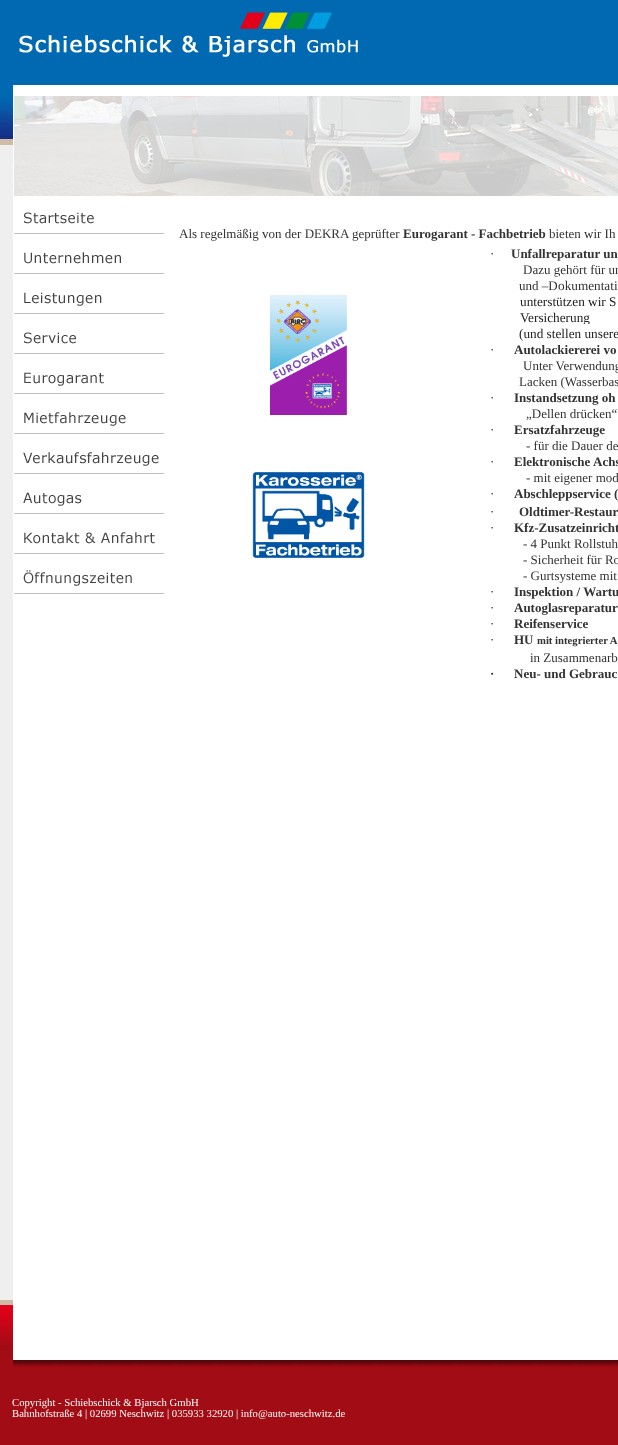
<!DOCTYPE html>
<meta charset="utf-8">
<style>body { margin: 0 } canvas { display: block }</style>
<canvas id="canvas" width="618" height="1445"></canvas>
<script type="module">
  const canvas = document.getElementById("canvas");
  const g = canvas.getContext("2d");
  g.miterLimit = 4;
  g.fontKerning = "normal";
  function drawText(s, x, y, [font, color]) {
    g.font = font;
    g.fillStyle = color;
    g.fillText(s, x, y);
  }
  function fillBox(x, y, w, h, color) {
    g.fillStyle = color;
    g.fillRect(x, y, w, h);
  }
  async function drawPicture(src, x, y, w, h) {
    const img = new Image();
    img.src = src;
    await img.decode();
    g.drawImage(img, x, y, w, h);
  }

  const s1 = ["13px Liberation Serif", "#333333"];
  const s2 = ["bold 13px Liberation Serif", "#333333"];
  const s3 = ["13.25px Liberation Serif", "#333333"];
  const s4 = ["13.25px Liberation Serif", "#222222"];
  const s5 = ["bold 10.7px Liberation Serif", "#333333"];
  const s6 = ["10.7px Liberation Serif", "#FFFFFF"];

  fillBox(0, 0, 618, 1445, "#FFFFFF");
  fillBox(0, 0, 618, 75, "#0069B2");
  await drawPicture("pic1.png", 19, 12, 340, 45);
  await drawPicture("pic2.png", 0, 95, 4, 50);
  fillBox(0, 75, 4, 20, "#0069B2");
  fillBox(4, 75, 9, 20, "#0169B2");
  fillBox(13, 75, 605, 10, "#0169B2");
  fillBox(0, 145, 13, 1155, "#EFEFEF");
  await drawPicture("pic3.png", 4, 95, 9, 50);
  await drawPicture("pic4.png", 14, 96, 604, 100);
  await drawPicture("pic5.png", 14, 212, 150, 22);
  await drawPicture("pic6.png", 14, 252, 150, 22);
  await drawPicture("pic7.png", 14, 292, 150, 22);
  await drawPicture("pic8.png", 14, 332, 150, 22);
  await drawPicture("pic9.png", 14, 372, 150, 22);
  await drawPicture("pic10.png", 14, 412, 150, 22);
  await drawPicture("pic11.png", 14, 452, 150, 22);
  await drawPicture("pic12.png", 14, 492, 150, 22);
  await drawPicture("pic13.png", 14, 532, 150, 22);
  await drawPicture("pic14.png", 14, 570, 150, 24);
  drawText("Als regelmäßig von der DEKRA geprüfter", 179, 238, s1);
  drawText("Eurogarant - Fachbetrieb", 403, 238, s2);
  drawText("bieten wir Ih", 549, 238, s1);
  await drawPicture("pic15.png", 270, 295, 77, 120);
  await drawPicture("pic16.png", 252, 472, 113, 86);
  drawText("·", 490, 258, s1);
  drawText("Unfallreparatur un", 511, 258, s2);
  drawText("Dazu gehört für un", 523, 274, s1);
  drawText("und –D", 519, 290, s1);
  drawText("okumentati", 558, 290, s3);
  fillBox(558, 276, 1, 1, "#FFFFFF");
  drawText("unterstützen wir S", 520, 306, s4);
  drawText("Versicherung", 520, 322, s4);
  drawText("(und stellen unsere", 519, 338, s4);
  fillBox(584, 324, 5, 1, "#FFFFFF");
  drawText("·", 490, 354, s1);
  drawText("Autolackiererei vo", 514, 354, s2);
  drawText("Unter Verwendung", 523, 370, s1);
  drawText("Lacken (Wasserbas", 519, 386, s1);
  drawText("·", 490, 402, s1);
  drawText("Instandsetzung oh", 514, 402, s2);
  drawText("„Dellen drücken“", 526, 418, s1);
  drawText("·", 490, 434, s1);
  drawText("Ersatzfahrzeuge", 514, 434, s2);
  drawText("- für die Dauer de", 526, 450, s1);
  drawText("·", 490, 466, s1);
  drawText("Elektronische", 514, 466, s2);
  drawText("Achs", 593, 466, s2);
  drawText("- mit eigener mod", 526, 482, s1);
  drawText("·", 490, 498, s1);
  drawText("Abschleppservice (", 514, 498, s2);
  drawText("·", 490, 516, s1);
  drawText("Oldtimer-Restaur", 519, 516, s2);
  drawText("·", 490, 532, s1);
  drawText("Kfz-Zusatzeinricht", 514, 532, s2);
  drawText("- 4 Punkt Rollstuh", 523, 548, s1);
  drawText("- Sicherheit für Ro", 523, 564, s1);
  drawText("- Gurtsysteme mit", 523, 580, s1);
  drawText("·", 490, 596, s1);
  drawText("Inspektion / Wartu", 514, 596, s2);
  drawText("·", 490, 612, s1);
  drawText("Autoglasreparatur", 514, 612, s2);
  drawText("·", 490, 628, s1);
  drawText("Reifenservice", 514, 628, s2);
  drawText("·", 490, 644, s1);
  drawText("HU", 514, 644, s2);
  drawText("mit integrierter A", 537, 644, s5);
  drawText("in Zusammenarb", 530, 662, s1);
  drawText("·", 490, 678, s2);
  drawText("Neu- und Gebrauc", 514, 678, s2);
  await drawPicture("pic17.png", 4, 1300, 9, 50);
  fillBox(0, 1350, 13, 20, "#A20C15");
  await drawPicture("pic18.png", 13, 1360, 605, 10);
  await drawPicture("pic19.png", 0, 1300, 4, 50);
  fillBox(0, 1370, 618, 75, "#A20C15");
  drawText("Copyright - Schiebschick & Bjarsch GmbH", 12, 1406, s6);
  drawText("Bahnhofstraße 4 | 02699 Neschwitz | 035933 32920 | info@auto-neschwitz.de", 12, 1417, s6);
</script>
